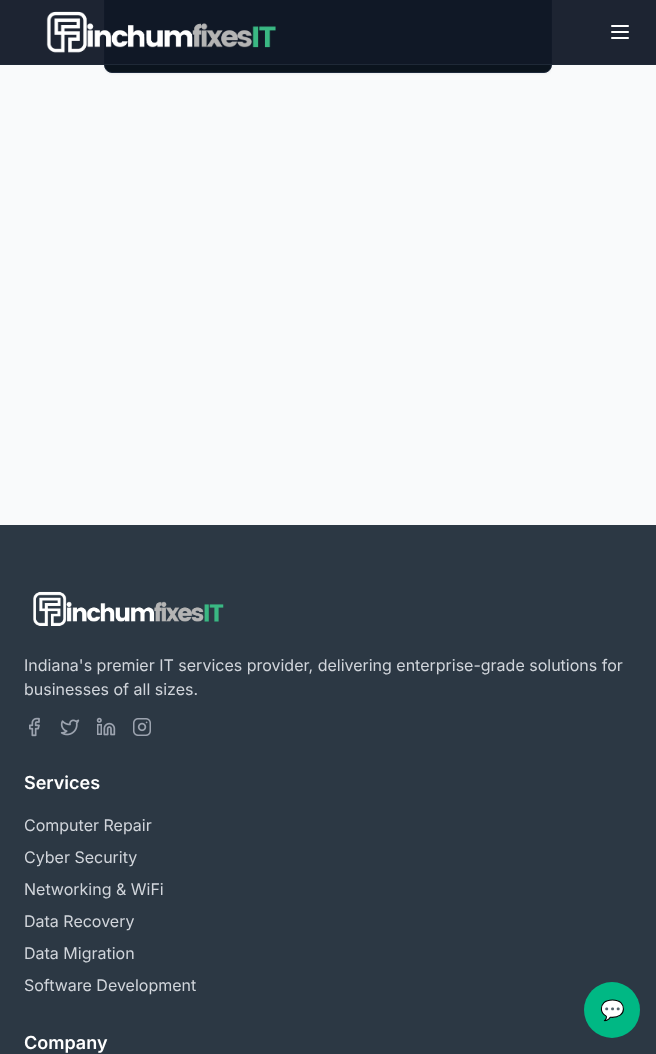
<!DOCTYPE html>
<meta charset="utf-8">
<style>body { margin: 0 } canvas { display: block }</style>
<canvas id="canvas" width="656" height="1054"></canvas>
<script type="module">
  const canvas = document.getElementById("canvas");
  const g = canvas.getContext("2d");
  g.miterLimit = 4;
  g.fontKerning = "normal";
  function drawText(s, x, y, [font, color]) {
    g.font = font;
    g.fillStyle = color;
    g.fillText(s, x, y);
  }
  function fillBox(x, y, w, h, color) {
    g.fillStyle = color;
    g.fillRect(x, y, w, h);
  }
  async function drawPicture(src, x, y, w, h) {
    const img = new Image();
    img.src = src;
    await img.decode();
    g.drawImage(img, x, y, w, h);
  }

  const s1 = ["16px Inter", "#D1D5DB"];
  const s2 = ["600 18px Inter", "#FFFFFF"];
  const s3 = ["20px Noto Color Emoji", "#FFFFFF"];

  fillBox(0, 0, 656, 1054, "#F9FAFB");
  g.fillStyle = "rgba(0, 0, 0, 0.05)";
  g.filter = "blur(1px)";
  g.beginPath();
  g.roundRect(104, -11, 448, 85, 8);
  g.fill();
  g.filter = "none";
  g.fillStyle = "#0B141E";
  g.beginPath();
  g.roundRect(104.5, -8.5, 447, 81, 7.5);
  g.fill();
  g.strokeStyle = "#1E293B";
  g.stroke();
  fillBox(0, 0, 656, 64, "rgba(17, 24, 39, 0.95)");
  fillBox(0, 64, 656, 1, "#1F2937");
  await drawPicture("pic1.png", 46, 11, 230, 42);
  await drawPicture("pic2.png", 611, 25, 18, 14);
  fillBox(0, 525, 656, 529, "#2C3844");
  await drawPicture("pic3.png", 33, 591, 191, 35);
  drawText("Indiana's premier IT services provider, delivering enterprise-grade solutions for", 24, 671, s1);
  drawText("businesses of all sizes.", 24, 695, s1);
  await drawPicture("pic4.png", 29, 717, 11, 20);
  await drawPicture("pic5.png", 60, 719, 20, 17);
  await drawPicture("pic6.png", 96, 717, 20, 19);
  await drawPicture("pic7.png", 133, 718, 18, 18);
  drawText("Services", 24, 789, s2);
  drawText("Computer Repair", 24, 831, s1);
  drawText("Cyber Security", 24, 863, s1);
  drawText("Networking & WiFi", 24, 895, s1);
  drawText("Data Recovery", 24, 927, s1);
  drawText("Data Migration", 24, 959, s1);
  drawText("Software Development", 24, 991, s1);
  drawText("Company", 24, 1049, s2);
  g.fillStyle = "#00B884";
  g.beginPath();
  g.arc(612, 1010, 28, 0, Math.PI * 2);
  g.fill();
  drawText("💬", 600, 1017, s3);
</script>
